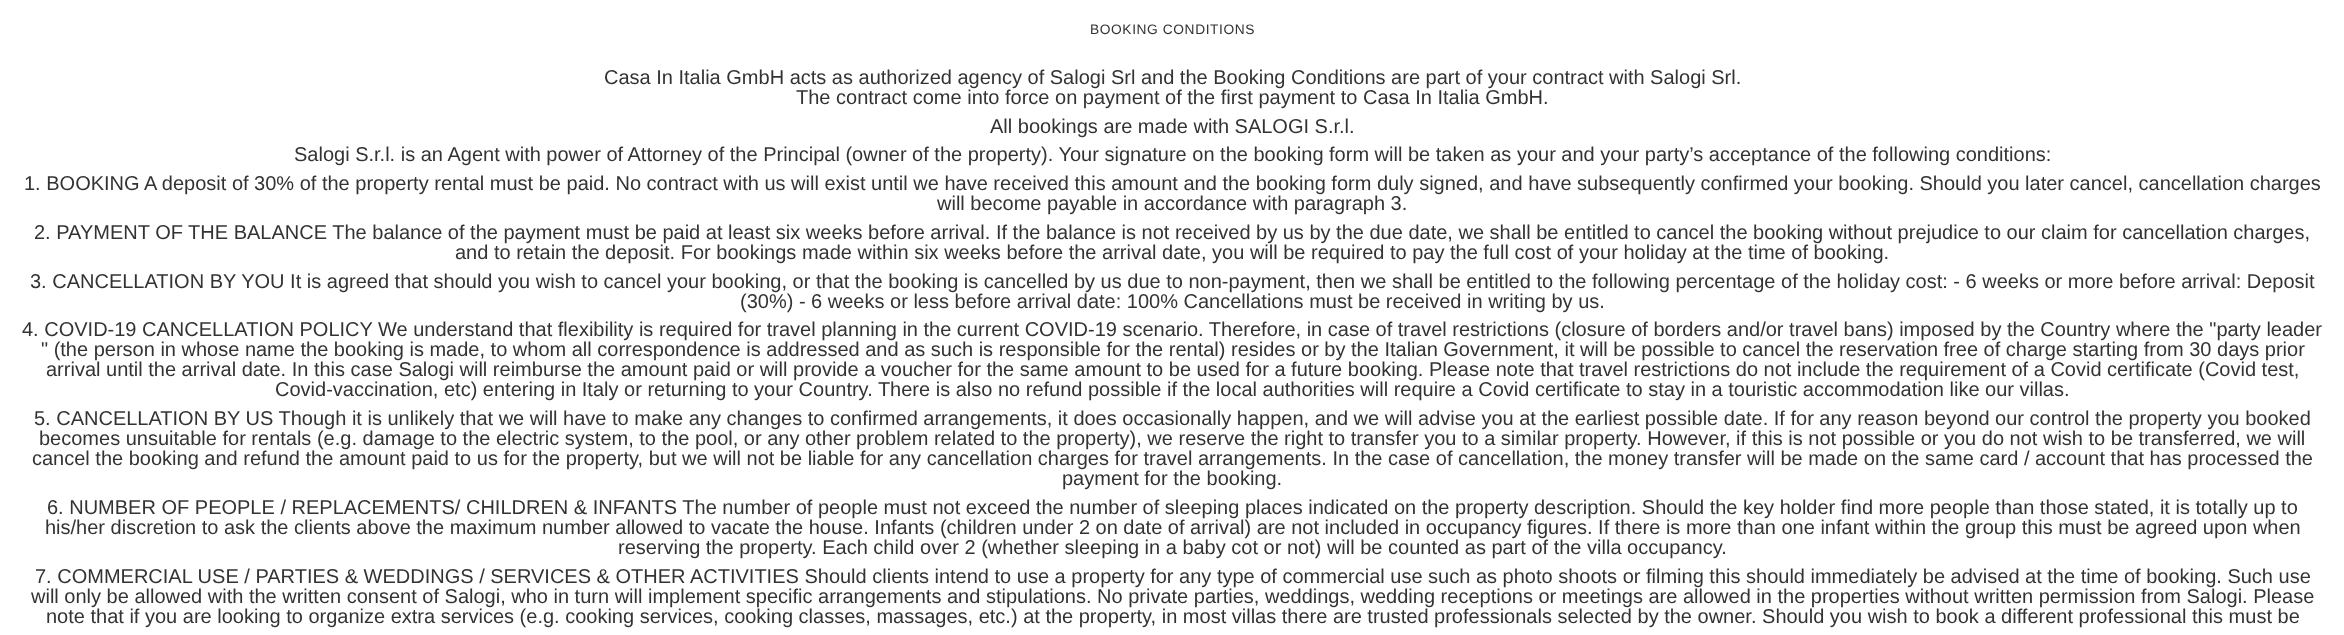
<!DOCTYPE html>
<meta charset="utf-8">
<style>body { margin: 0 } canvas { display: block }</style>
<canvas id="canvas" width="2344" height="635"></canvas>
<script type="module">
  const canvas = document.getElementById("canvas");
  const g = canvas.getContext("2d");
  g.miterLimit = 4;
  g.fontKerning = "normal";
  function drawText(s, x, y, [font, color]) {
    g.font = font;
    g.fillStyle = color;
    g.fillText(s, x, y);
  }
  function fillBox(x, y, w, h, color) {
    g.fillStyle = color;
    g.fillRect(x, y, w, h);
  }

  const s1 = ["13.75px Liberation Sans", "#333333"];
  const s2 = ["20px Liberation Sans", "#333333"];

  fillBox(0, 0, 2344, 635, "#FFFFFF");
  g.letterSpacing = "0.6px";
  drawText("BOOKING CONDITIONS", 1090, 34, s1);
  g.letterSpacing = "0px";
  drawText("Casa In Italia GmbH acts as authorized agency of Salogi Srl and the Booking Conditions are part of your contract with Salogi Srl.", 604, 84, s2);
  drawText("The contract come into force on payment of the ﬁrst payment to Casa In Italia GmbH.", 796, 104, s2);
  drawText("All bookings are made with SALOGI S.r.l.", 990, 133, s2);
  drawText("Salogi S.r.l. is an Agent with power of Attorney of the Principal (owner of the property). Your signature on the booking form will be taken as your and your party’s acceptance of the following conditions:", 294, 161, s2);
  drawText("1. BOOKING A deposit of 30% of the property rental must be paid. No contract with us will exist until we have received this amount and the booking form duly signed, and have subsequently confirmed your booking. Should you later cancel, cancellation charges", 24, 190, s2);
  drawText("will become payable in accordance with paragraph 3.", 937, 210, s2);
  drawText("2. PAYMENT OF THE BALANCE The balance of the payment must be paid at least six weeks before arrival. If the balance is not received by us by the due date, we shall be entitled to cancel the booking without prejudice to our claim for cancellation charges,", 34, 239, s2);
  drawText("and to retain the deposit. For bookings made within six weeks before the arrival date, you will be required to pay the full cost of your holiday at the time of booking.", 455, 259, s2);
  drawText("3. CANCELLATION BY YOU It is agreed that should you wish to cancel your booking, or that the booking is cancelled by us due to non-payment, then we shall be entitled to the following percentage of the holiday cost: - 6 weeks or more before arrival: Deposit", 30, 288, s2);
  drawText("(30%) - 6 weeks or less before arrival date: 100% Cancellations must be received in writing by us.", 740, 308, s2);
  drawText("4. COVID-19 CANCELLATION POLICY We understand that flexibility is required for travel planning in the current COVID-19 scenario. Therefore, in case of travel restrictions (closure of borders and/or travel bans) imposed by the Country where the \"party leader", 22, 336, s2);
  drawText("\" (the person in whose name the booking is made, to whom all correspondence is addressed and as such is responsible for the rental) resides or by the Italian Government, it will be possible to cancel the reservation free of charge starting from 30 days prior", 41, 356, s2);
  drawText("arrival until the arrival date. In this case Salogi will reimburse the amount paid or will provide a voucher for the same amount to be used for a future booking. Please note that travel restrictions do not include the requirement of a Covid certificate (Covid test,", 46, 376, s2);
  drawText("Covid-vaccination, etc) entering in Italy or returning to your Country. There is also no refund possible if the local authorities will require a Covid certificate to stay in a touristic accommodation like our villas.", 275, 396, s2);
  drawText("5. CANCELLATION BY US Though it is unlikely that we will have to make any changes to confirmed arrangements, it does occasionally happen, and we will advise you at the earliest possible date. If for any reason beyond our control the property you booked", 34, 425, s2);
  drawText("becomes unsuitable for rentals (e.g. damage to the electric system, to the pool, or any other problem related to the property), we reserve the right to transfer you to a similar property. However, if this is not possible or you do not wish to be transferred, we will", 39, 445, s2);
  drawText("cancel the booking and refund the amount paid to us for the property, but we will not be liable for any cancellation charges for travel arrangements. In the case of cancellation, the money transfer will be made on the same card / account that has processed the", 32, 465, s2);
  drawText("payment for the booking.", 1062, 485, s2);
  drawText("6. NUMBER OF PEOPLE / REPLACEMENTS/ CHILDREN & INFANTS The number of people must not exceed the number of sleeping places indicated on the property description. Should the key holder find more people than those stated, it is totally up to", 47, 514, s2);
  drawText("his/her discretion to ask the clients above the maximum number allowed to vacate the house. Infants (children under 2 on date of arrival) are not included in occupancy figures. If there is more than one infant within the group this must be agreed upon when", 45, 534, s2);
  drawText("reserving the property. Each child over 2 (whether sleeping in a baby cot or not) will be counted as part of the villa occupancy.", 618, 554, s2);
  drawText("7. COMMERCIAL USE / PARTIES & WEDDINGS / SERVICES & OTHER ACTIVITIES Should clients intend to use a property for any type of commercial use such as photo shoots or filming this should immediately be advised at the time of booking. Such use", 35, 583, s2);
  drawText("will only be allowed with the written consent of Salogi, who in turn will implement specific arrangements and stipulations. No private parties, weddings, wedding receptions or meetings are allowed in the properties without written permission from Salogi. Please", 31, 603, s2);
  drawText("note that if you are looking to organize extra services (e.g. cooking services, cooking classes, massages, etc.) at the property, in most villas there are trusted professionals selected by the owner. Should you wish to book a different professional this must be", 46, 623, s2);
</script>
